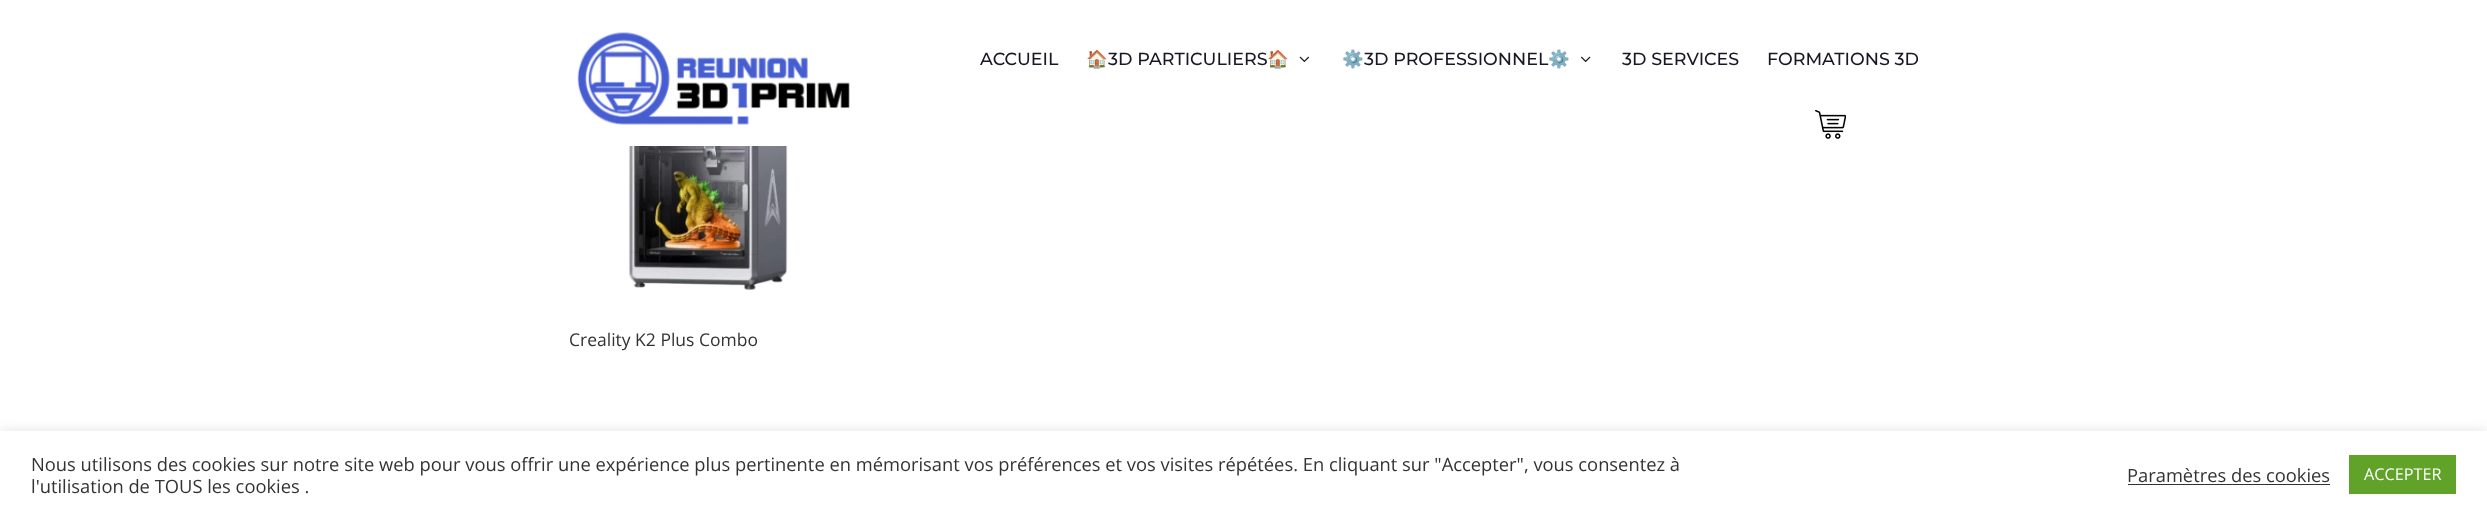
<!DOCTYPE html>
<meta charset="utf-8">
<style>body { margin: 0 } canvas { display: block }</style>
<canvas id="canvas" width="2487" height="517"></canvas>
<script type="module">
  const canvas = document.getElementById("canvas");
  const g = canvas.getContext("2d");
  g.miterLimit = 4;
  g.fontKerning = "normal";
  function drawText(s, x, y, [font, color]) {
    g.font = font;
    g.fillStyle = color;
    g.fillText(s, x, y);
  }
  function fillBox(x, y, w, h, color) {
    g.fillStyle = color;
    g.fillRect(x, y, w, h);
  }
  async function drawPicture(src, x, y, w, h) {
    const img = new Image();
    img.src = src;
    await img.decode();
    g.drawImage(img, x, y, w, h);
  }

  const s1 = ["100 17.5px Montserrat", "#171725"];
  const s2 = ["17.5px Noto Color Emoji", "#171725"];
  const s3 = ["17.5px Open Sans", "#333333"];
  const s4 = ["18.33px Open Sans", "#333333"];
  const s5 = ["16.25px Open Sans", "#FFFFFF"];

  fillBox(0, 0, 2487, 517, "#FFFFFF");
  await drawPicture("pic1.png", 577, 32, 273, 93);
  drawText("ACCUEIL", 980, 65, s1);
  drawText("🏠", 1086, 65, s2);
  drawText("3D PARTICULIERS", 1108, 65, s1);
  drawText("🏠", 1267, 65, s2);
  await drawPicture("pic2.png", 1299, 56, 10, 6);
  drawText("⚙️", 1342, 65, s2);
  drawText("3D PROFESSIONNEL", 1364, 65, s1);
  drawText("⚙️", 1548, 65, s2);
  await drawPicture("pic3.png", 1581, 56, 10, 6);
  drawText("3D SERVICES", 1622, 65, s1);
  drawText("FORMATIONS 3D", 1767, 65, s1);
  await drawPicture("pic4.png", 1815, 110, 31, 29);
  await drawPicture("pic5.png", 628, 146, 160, 144);
  drawText("Creality K2 Plus Combo", 569, 346, s3);
  g.fillStyle = "rgba(172, 171, 171, 0.3)";
  g.filter = "blur(6px)";
  g.beginPath();
  g.rect(0, 430, 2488, 86);
  g.fill();
  g.filter = "none";
  fillBox(0, 431, 2487, 86, "#FFFFFF");
  drawText("Nous utilisons des cookies sur notre site web pour vous offrir une expérience plus pertinente en mémorisant vos préférences et vos visites répétées. En cliquant sur \"Accepter\", vous consentez à", 31, 471, s4);
  drawText("l'utilisation de TOUS les cookies .", 31, 493, s4);
  drawText("Paramètres des cookies", 2127, 482, s4);
  fillBox(2128, 484, 202, 1, "#333333");
  fillBox(2349, 455, 107, 39, "#61A229");
  drawText("ACCEPTER", 2364, 480, s5);
</script>
